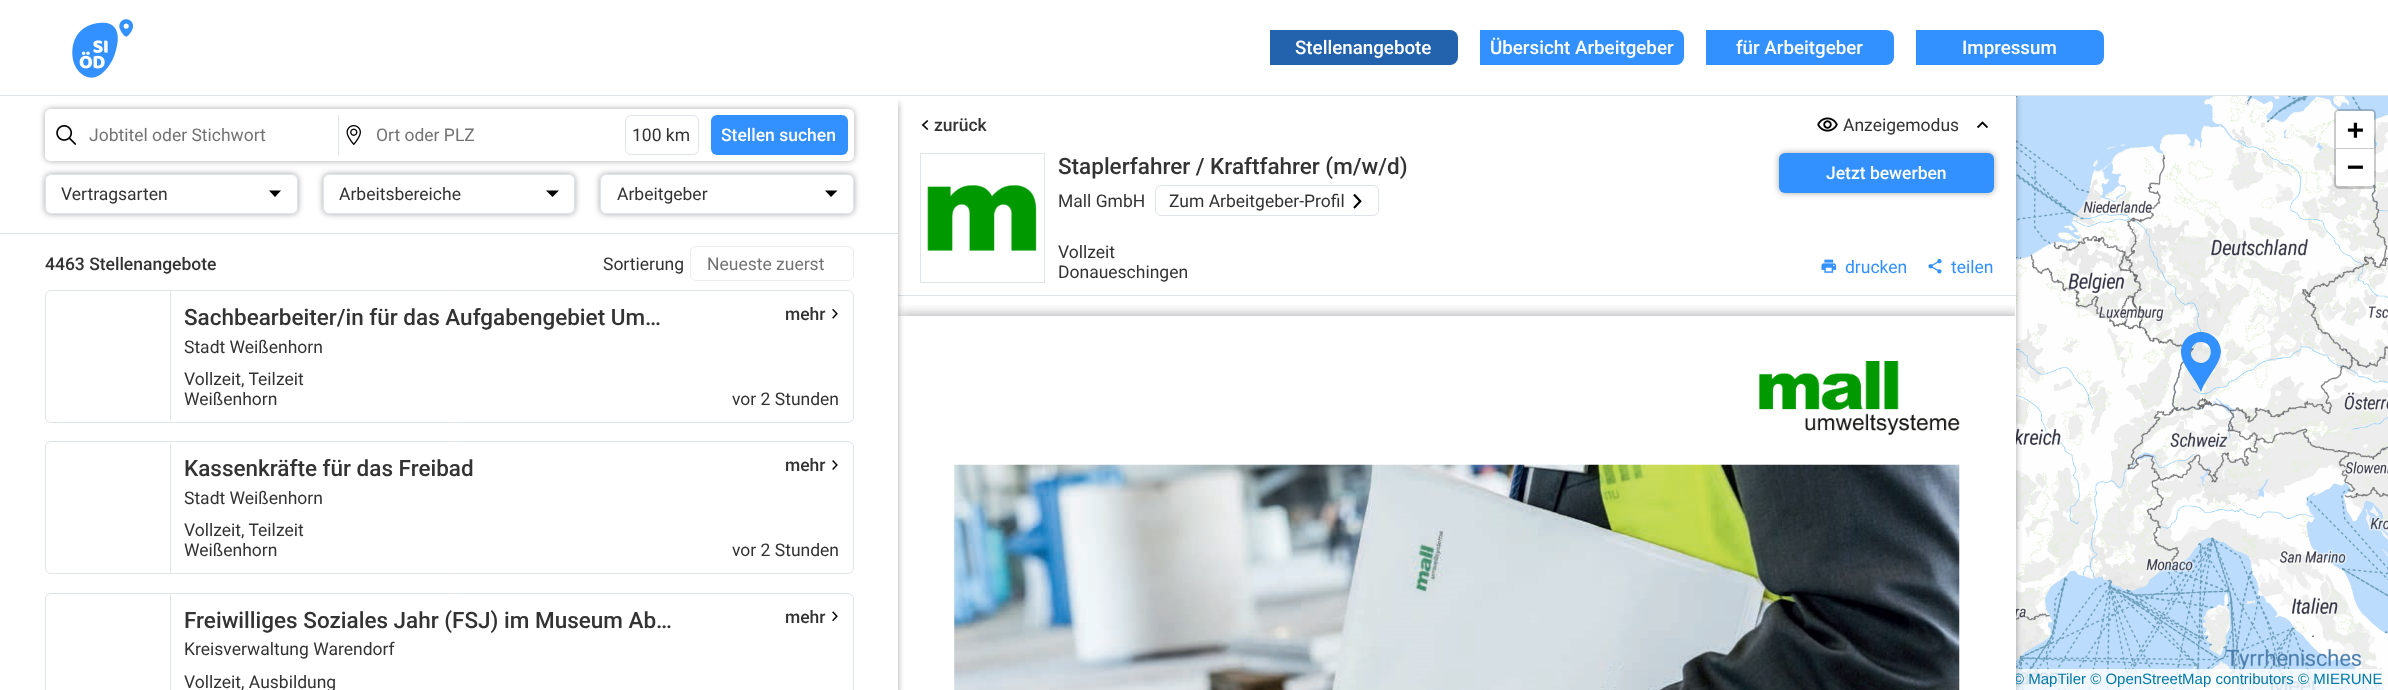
<!DOCTYPE html>
<meta charset="utf-8">
<style>body { margin: 0 } canvas { display: block }</style>
<canvas id="canvas" width="2388" height="690"></canvas>
<script type="module">
  const canvas = document.getElementById("canvas");
  const g = canvas.getContext("2d");
  g.miterLimit = 4;
  g.fontKerning = "normal";
  function drawText(s, x, y, [font, color]) {
    g.font = font;
    g.fillStyle = color;
    g.fillText(s, x, y);
  }
  function fillBox(x, y, w, h, color) {
    g.fillStyle = color;
    g.fillRect(x, y, w, h);
  }
  function fillRounded(x, y, w, h, r, color) {
    g.fillStyle = color;
    g.beginPath();
    g.roundRect(x, y, w, h, r);
    g.fill();
  }
  async function drawPicture(src, x, y, w, h) {
    const img = new Image();
    img.src = src;
    await img.decode();
    g.drawImage(img, x, y, w, h);
  }

  const s1 = ["15px Liberation Sans", "#0078A8"];
  const s2 = ["500 18.75px Roboto", "#FFFFFF"];
  const s3 = ["17.5px Roboto", "#737373"];
  const s4 = ["17.5px Roboto", "#333333"];
  const s5 = ["500 17.5px Roboto", "#FFFFFF"];
  const s6 = ["500 17.5px Roboto", "#333333"];
  const s7 = ["500 22.5px Roboto", "#333333"];
  const s8 = ["17.5px Roboto", "#3390FF"];
  const s9 = ["bold 28px DejaVu Sans Mono", "#000000"];

  fillBox(0, 0, 2388, 690, "#FFFFFF");
  await drawPicture("pic15.png", 2016, 96, 372, 575);
  await drawPicture("pic16.png", 2016, 671, 372, 19);
  fillBox(2016, 669, 372, 21, "rgba(255, 255, 255, 0.8)");
  g.save();
  g.beginPath();
  g.rect(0, 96, 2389, 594);
  g.clip();
  g.fillStyle = "rgba(0, 0, 0, 0.35)";
  g.filter = "blur(3px)";
  g.beginPath();
  g.rect(898, 96, 1118, 594);
  g.fill();
  g.filter = "none";
  g.restore();
  drawText("© MapTiler © OpenStreetMap contributors © MIERUNE", 2013, 684, s1);
  fillBox(898, 96, 1118, 594, "#FFFFFF");
  fillBox(898, 295, 1118, 1, "#DFE4EA");
  await drawPicture("pic14.png", 898, 305, 1117, 385);
  g.fillStyle = "rgba(0, 0, 0, 0.35)";
  g.filter = "blur(3px)";
  g.beginPath();
  g.rect(0, 103, 898, 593);
  g.fill();
  g.filter = "none";
  fillBox(0, 95, 2388, 1, "#DFE4EA");
  await drawPicture("pic1.png", 72, 19, 62, 59);
  g.fillStyle = "#2362AC";
  g.beginPath();
  g.roundRect(1270, 30, 188, 35, [0, 8, 8, 0]);
  g.fill();
  drawText("Stellenangebote", 1295, 54, s2);
  g.fillStyle = "#3390FF";
  g.beginPath();
  g.roundRect(1480, 30, 204, 35, [0, 8, 8, 0]);
  g.fill();
  drawText("Übersicht Arbeitgeber", 1490, 54, s2);
  g.fillStyle = "#3390FF";
  g.beginPath();
  g.roundRect(1706, 30, 188, 35, [0, 8, 8, 0]);
  g.fill();
  drawText("für Arbeitgeber", 1736, 54, s2);
  g.fillStyle = "#3390FF";
  g.beginPath();
  g.roundRect(1916, 30, 188, 35, [0, 8, 8, 0]);
  g.fill();
  drawText("Impressum", 1962, 54, s2);
  fillBox(0, 96, 898, 594, "#FFFFFF");
  fillBox(0, 233, 898, 1, "#DFE4EA");
  g.save();
  g.beginPath();
  g.moveTo(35, 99);
  g.lineTo(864, 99);
  g.lineTo(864, 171);
  g.lineTo(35, 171);
  g.closePath();
  g.moveTo(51, 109);
  g.lineTo(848, 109);
  g.bezierCurveTo(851.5, 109, 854, 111.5, 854, 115);
  g.lineTo(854, 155);
  g.bezierCurveTo(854, 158.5, 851.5, 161, 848, 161);
  g.lineTo(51, 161);
  g.bezierCurveTo(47.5, 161, 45, 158.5, 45, 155);
  g.lineTo(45, 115);
  g.bezierCurveTo(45, 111.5, 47.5, 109, 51, 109);
  g.closePath();
  g.clip("evenodd");
  g.fillStyle = "rgba(0, 0, 0, 0.35)";
  g.filter = "blur(3px)";
  g.beginPath();
  g.roundRect(45, 109, 809, 52, 6);
  g.fill();
  g.filter = "none";
  g.restore();
  fillBox(338, 115, 1, 40, "#DFE4EA");
  await drawPicture("pic2.png", 56, 125, 20, 20);
  drawText("Jobtitel oder Stichwort", 89, 141, s3);
  await drawPicture("pic3.png", 346, 125, 15, 20);
  drawText("Ort oder PLZ", 376, 141, s3);
  g.beginPath();
  g.roundRect(625.5, 115.5, 73, 39, 5.5);
  g.strokeStyle = "#DFE4EA";
  g.stroke();
  drawText("100 km", 632, 141, s4);
  fillRounded(711, 115, 137, 40, 6, "#3390FF");
  drawText("Stellen suchen", 721, 141, s5);
  g.fillStyle = "rgba(0, 0, 0, 0.35)";
  g.filter = "blur(3px)";
  g.beginPath();
  g.roundRect(45, 174, 253, 40, 6);
  g.fill();
  g.filter = "none";
  g.fillStyle = "#FFFFFF";
  g.beginPath();
  g.roundRect(45.5, 174.5, 252, 39, 5.5);
  g.fill();
  g.stroke();
  drawText("Vertragsarten", 61, 200, s4);
  g.fillStyle = "#000000";
  g.beginPath();
  g.moveTo(269, 190.5);
  g.lineTo(275, 197);
  g.lineTo(281, 190.5);
  g.closePath();
  g.fill();
  g.fillStyle = "rgba(0, 0, 0, 0.35)";
  g.filter = "blur(3px)";
  g.beginPath();
  g.roundRect(323, 174, 252, 40, 6);
  g.fill();
  g.filter = "none";
  g.fillStyle = "#FFFFFF";
  g.beginPath();
  g.roundRect(323.5, 174.5, 251, 39, 5.5);
  g.fill();
  g.stroke();
  drawText("Arbeitsbereiche", 339, 200, s4);
  g.fillStyle = "#000000";
  g.beginPath();
  g.moveTo(546, 190.5);
  g.lineTo(552.5, 197);
  g.lineTo(559, 190.5);
  g.closePath();
  g.fill();
  g.fillStyle = "rgba(0, 0, 0, 0.35)";
  g.filter = "blur(3px)";
  g.beginPath();
  g.roundRect(600, 174, 254, 40, 6);
  g.fill();
  g.filter = "none";
  g.fillStyle = "#FFFFFF";
  g.beginPath();
  g.roundRect(600.5, 174.5, 253, 39, 5.5);
  g.fill();
  g.stroke();
  drawText("Arbeitgeber", 617, 200, s4);
  g.fillStyle = "#000000";
  g.beginPath();
  g.moveTo(825, 190.5);
  g.lineTo(831, 197);
  g.lineTo(837.5, 190.5);
  g.closePath();
  g.fill();
  drawText("4463 Stellenangebote", 45, 270, s6);
  drawText("Sortierung", 603, 270, s4);
  g.beginPath();
  g.roundRect(690.5, 246.5, 163, 34, 5.5);
  g.strokeStyle = "#E9ECF0";
  g.stroke();
  drawText("Neueste zuerst", 707, 270, s3);
  g.beginPath();
  g.roundRect(45.5, 290.5, 808, 132, 5.5);
  g.strokeStyle = "#DFE4EA";
  g.stroke();
  fillBox(170, 291, 1, 130, "#DFE4EA");
  drawText("Sachbearbeiter/in für das Aufgabengebiet Um…", 184, 325, s7);
  drawText("Stadt Weißenhorn", 184, 353, s4);
  drawText("Vollzeit, Teilzeit", 184, 385, s4);
  drawText("Weißenhorn", 184, 405, s4);
  drawText("mehr", 785, 320, s6);
  await drawPicture("pic4.png", 832, 309, 6, 10);
  drawText("vor 2 Stunden", 732, 405, s4);
  g.beginPath();
  g.roundRect(45.5, 441.5, 808, 132, 5.5);
  g.stroke();
  fillBox(170, 443, 1, 130, "#DFE4EA");
  drawText("Kassenkräfte für das Freibad", 184, 476, s7);
  drawText("Stadt Weißenhorn", 184, 504, s4);
  drawText("Vollzeit, Teilzeit", 184, 536, s4);
  drawText("Weißenhorn", 184, 556, s4);
  drawText("mehr", 785, 471, s6);
  await drawPicture("pic5.png", 832, 460, 6, 10);
  drawText("vor 2 Stunden", 732, 556, s4);
  g.beginPath();
  g.roundRect(45.5, 593.5, 808, 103, 5.5);
  g.stroke();
  fillBox(170, 594, 1, 96, "#DFE4EA");
  drawText("Freiwilliges Soziales Jahr (FSJ) im Museum Ab…", 184, 628, s7);
  drawText("Kreisverwaltung Warendorf", 184, 655, s4);
  drawText("Vollzeit, Ausbildung", 184, 688, s4);
  drawText("mehr", 785, 623, s6);
  await drawPicture("pic6.png", 832, 611, 6, 10);
  await drawPicture("pic7.png", 921, 120, 8, 10);
  drawText("zurück", 934, 131, s6);
  await drawPicture("pic8.png", 1817, 117, 21, 15);
  drawText("Anzeigemodus", 1843, 131, s4);
  await drawPicture("pic9.png", 1977, 121, 11, 8);
  g.strokeRect(920.5, 153.5, 124, 129);
  await drawPicture("pic10.png", 927, 185, 110, 66);
  drawText("Staplerfahrer / Kraftfahrer (m/w/d)", 1058, 174, s7);
  drawText("Mall GmbH", 1058, 207, s4);
  g.beginPath();
  g.roundRect(1155.5, 185.5, 223, 30, 5.5);
  g.stroke();
  drawText("Zum Arbeitgeber-Profil", 1169, 207, s4);
  await drawPicture("pic11.png", 1353, 194, 9, 15);
  drawText("Vollzeit", 1058, 258, s4);
  drawText("Donaueschingen", 1058, 278, s4);
  g.fillStyle = "rgba(0, 0, 0, 0.35)";
  g.filter = "blur(3px)";
  g.beginPath();
  g.roundRect(1779, 153, 215, 40, 6);
  g.fill();
  g.filter = "none";
  fillRounded(1779, 153, 215, 40, 6, "#3390FF");
  drawText("Jetzt bewerben", 1826, 179, s5);
  await drawPicture("pic12.png", 1821, 259, 16, 14);
  drawText("drucken", 1845, 273, s8);
  await drawPicture("pic13.png", 1928, 259, 14, 15);
  drawText("teilen", 1951, 273, s8);
  g.beginPath();
  g.moveTo(2201, 332);
  g.bezierCurveTo(2190, 332, 2181, 341, 2181, 352);
  g.bezierCurveTo(2181, 365, 2196, 379, 2201, 392);
  g.bezierCurveTo(2205, 379, 2220, 365, 2221, 352);
  g.bezierCurveTo(2221, 341, 2212, 332, 2201, 332);
  g.closePath();
  g.moveTo(2201, 342);
  g.bezierCurveTo(2215, 342, 2213, 363, 2201, 363);
  g.bezierCurveTo(2187, 362, 2188, 342, 2201, 342);
  g.closePath();
  g.fill();
  g.beginPath();
  g.roundRect(2335.5, 110.5, 39, 77, 3.5);
  g.strokeStyle = "rgba(0, 0, 0, 0.2)";
  g.lineWidth = 3;
  g.stroke();
  g.fillStyle = "#FFFFFF";
  g.beginPath();
  g.roundRect(2336, 111, 38, 38, [2.5, 2.5, 0, 0]);
  g.fill();
  fillBox(2336, 148, 38, 1, "#CCCCCC");
  drawText("+", 2347, 139, s9);
  g.fillStyle = "#FFFFFF";
  g.beginPath();
  g.roundRect(2336, 149, 38, 37, [0, 0, 2.5, 2.5]);
  g.fill();
  drawText("−", 2347, 176, s9);
</script>
